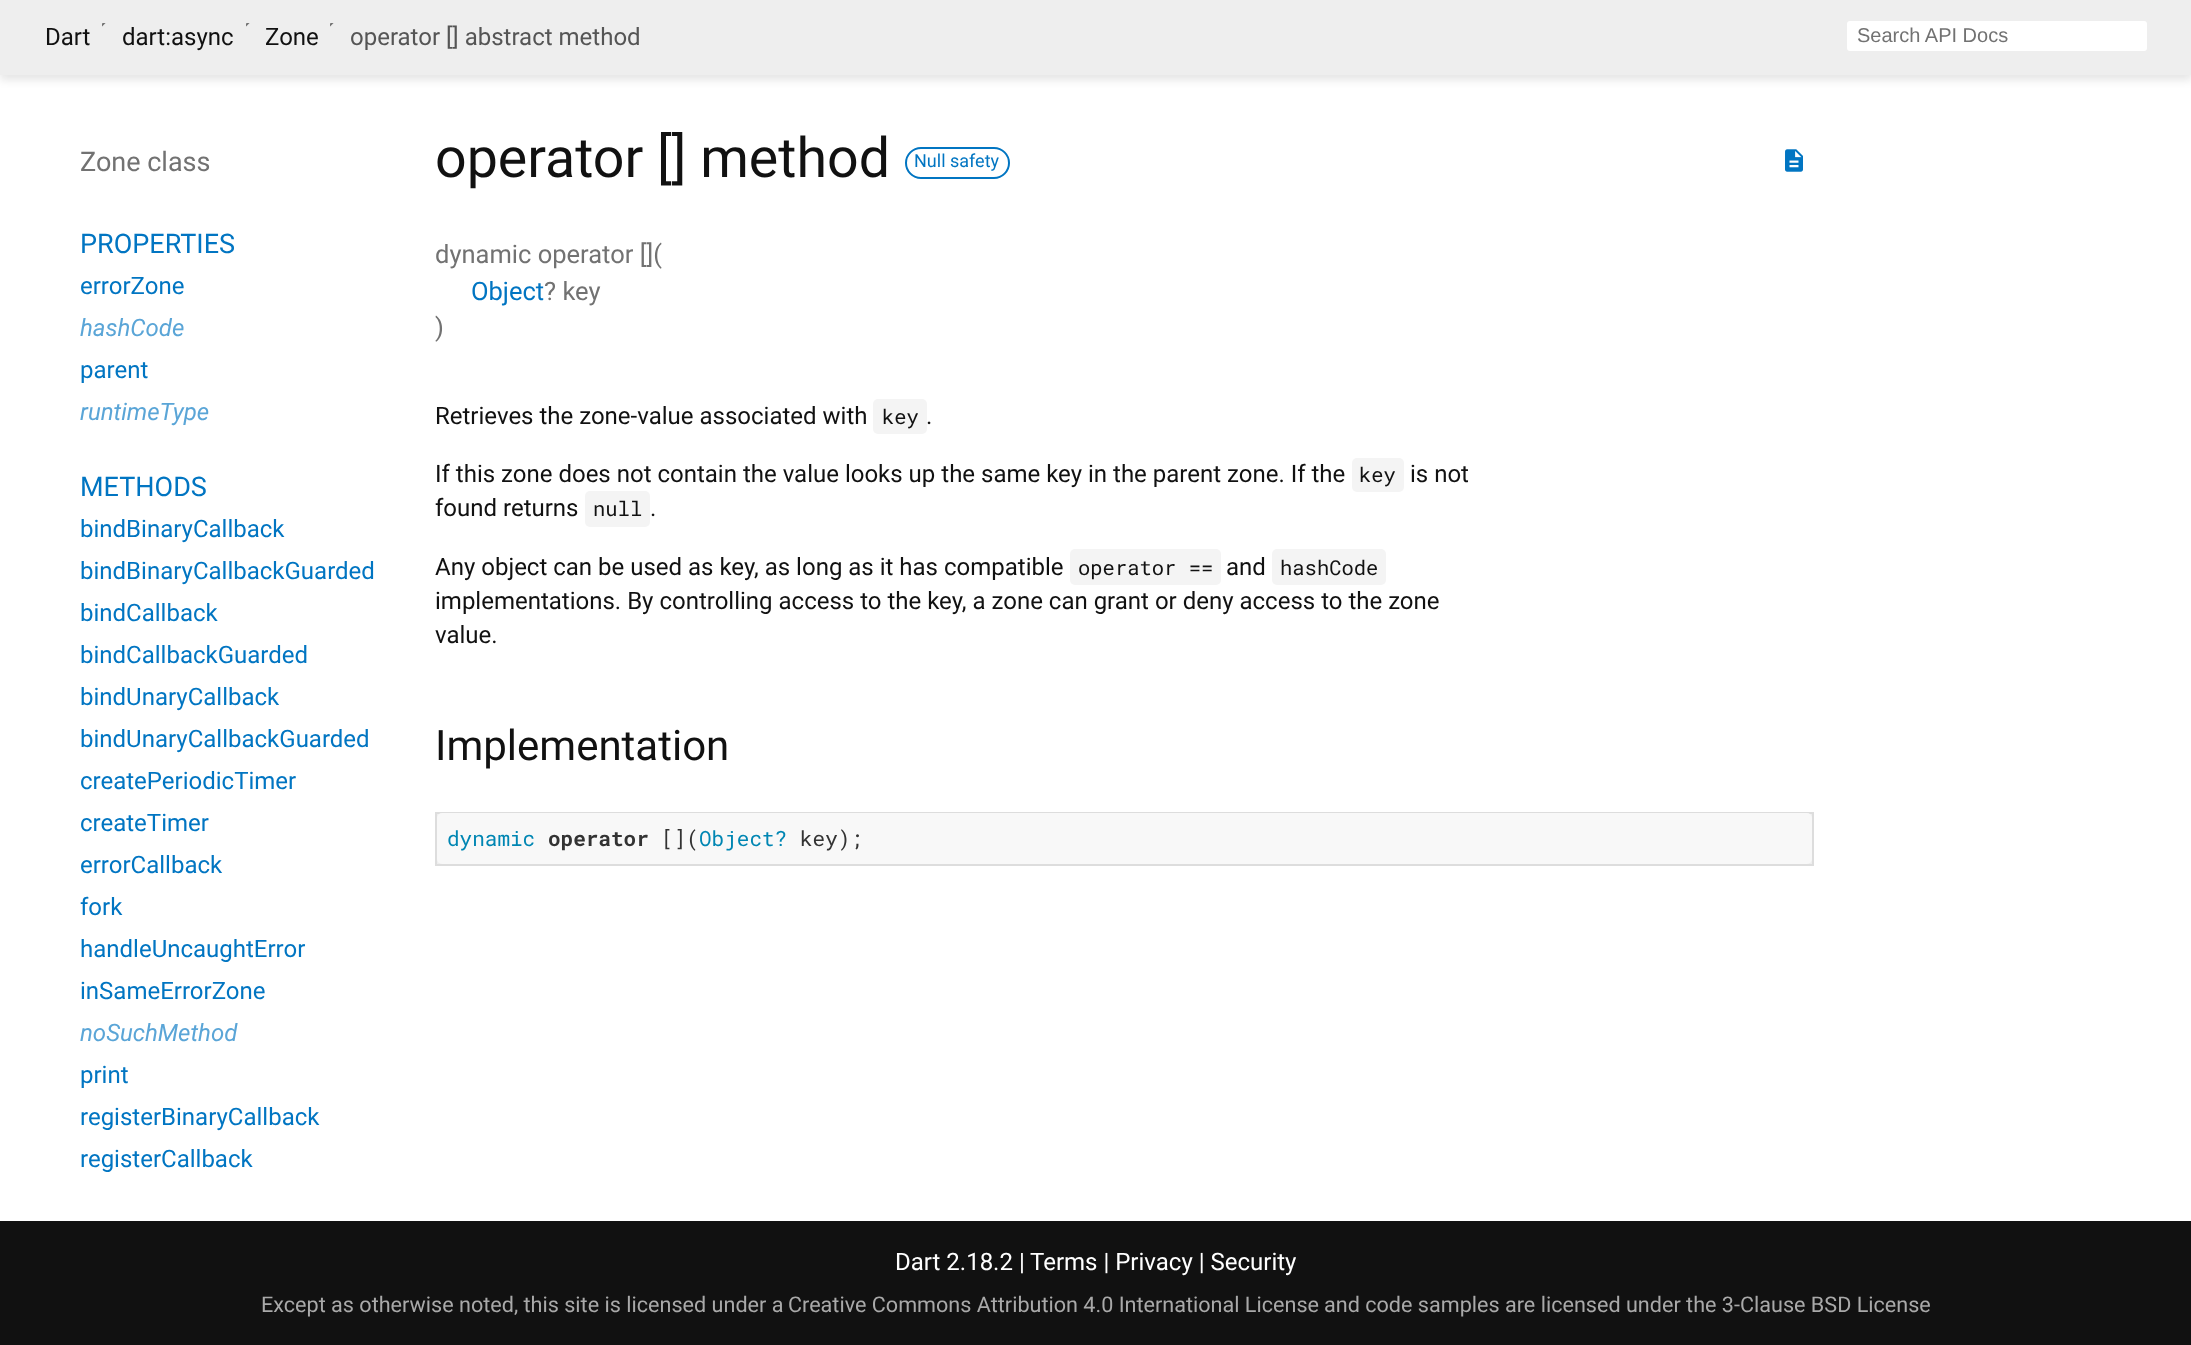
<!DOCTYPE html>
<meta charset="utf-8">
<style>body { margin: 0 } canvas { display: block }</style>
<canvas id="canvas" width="2191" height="1345"></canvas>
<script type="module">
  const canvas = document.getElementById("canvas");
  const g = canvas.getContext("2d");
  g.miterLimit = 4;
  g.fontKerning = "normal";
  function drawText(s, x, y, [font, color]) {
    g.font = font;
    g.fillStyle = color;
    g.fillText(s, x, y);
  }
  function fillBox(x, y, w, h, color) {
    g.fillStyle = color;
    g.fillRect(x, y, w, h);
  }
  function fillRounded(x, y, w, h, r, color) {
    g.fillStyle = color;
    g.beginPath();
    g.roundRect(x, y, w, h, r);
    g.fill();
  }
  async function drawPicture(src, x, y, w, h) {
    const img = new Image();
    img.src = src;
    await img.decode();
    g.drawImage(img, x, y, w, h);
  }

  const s1 = ["24px Roboto", "#111111"];
  const s2 = ["24px Roboto", "#555555"];
  const s3 = ["20px Liberation Sans", "#727272"];
  const s4 = ["27px Roboto", "#727272"];
  const s5 = ["27px Roboto", "#0175C2"];
  const s6 = ["24px Roboto", "#0175C2"];
  const s7 = ["italic 24px Roboto", "#5AA5D7"];
  const s8 = ["55.5px Roboto", "#111111"];
  const s9 = ["18px Roboto", "#0175C2"];
  const s10 = ["25.5px Roboto", "#727272"];
  const s11 = ["25.5px Roboto", "#0175C2"];
  const s12 = ["20.5px Roboto Mono", "#111111"];
  const s13 = ["42px Roboto", "#111111"];
  const s14 = ["21px Roboto Mono", "#0086B3"];
  const s15 = ["bold 21px Roboto Mono", "#333333"];
  const s16 = ["21px Roboto Mono", "#333333"];
  const s17 = ["24px Roboto", "#FFFFFF"];
  const s18 = ["21.6px Roboto", "#A9A9A9"];

  fillBox(0, 0, 2191, 1345, "#FFFFFF");
  g.fillStyle = "rgba(0, 0, 0, 0.1)";
  g.filter = "blur(4px)";
  g.beginPath();
  g.rect(0, 5, 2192, 75);
  g.fill();
  g.filter = "none";
  fillBox(0, 0, 2191, 75, "#EEEEEE");
  drawText("Dart", 45, 45, s1);
  await drawPicture("pic1.png", 102, 23, 4, 4);
  drawText("dart:async", 122, 45, s1);
  await drawPicture("pic1.png", 246, 23, 4, 4);
  drawText("Zone", 265, 45, s1);
  await drawPicture("pic1.png", 330, 23, 4, 4);
  drawText("operator [] abstract method", 350, 45, s2);
  fillRounded(1847, 21, 300, 30, 3, "#FFFFFF");
  drawText("Search API Docs", 1857, 42, s3);
  drawText("Zone class", 80, 171, s4);
  drawText("PROPERTIES", 80, 253, s5);
  drawText("errorZone", 80, 294, s6);
  drawText("hashCode", 80, 336, s7);
  drawText("parent", 80, 378, s6);
  drawText("runtimeType", 80, 420, s7);
  drawText("METHODS", 80, 496, s5);
  drawText("bindBinaryCallback", 80, 537, s6);
  drawText("bindBinaryCallbackGuarded", 80, 579, s6);
  drawText("bindCallback", 80, 621, s6);
  drawText("bindCallbackGuarded", 80, 663, s6);
  drawText("bindUnaryCallback", 80, 705, s6);
  drawText("bindUnaryCallbackGuarded", 80, 747, s6);
  drawText("createPeriodicTimer", 80, 789, s6);
  drawText("createTimer", 80, 831, s6);
  drawText("errorCallback", 80, 873, s6);
  drawText("fork", 80, 915, s6);
  drawText("handleUncaughtError", 80, 957, s6);
  drawText("inSameErrorZone", 80, 999, s6);
  drawText("noSuchMethod", 80, 1041, s7);
  drawText("print", 80, 1083, s6);
  drawText("registerBinaryCallback", 80, 1125, s6);
  drawText("registerCallback", 80, 1167, s6);
  drawText("operator [] method", 435, 177, s8);
  g.beginPath();
  g.roundRect(906, 148, 103, 30, 15);
  g.strokeStyle = "#0175C2";
  g.lineWidth = 2;
  g.stroke();
  drawText("Null safety", 914, 167, s9);
  await drawPicture("pic2.png", 1785, 149, 18, 23);
  drawText("dynamic operator [](", 435, 263, s10);
  drawText("Object", 471, 300, s11);
  drawText("? key", 544, 300, s10);
  drawText(")", 435, 336, s10);
  drawText("Retrieves the zone-value associated with", 435, 424, s1);
  fillRounded(873, 399, 54, 35, 5, "#F4F4F4");
  drawText("key", 882, 424, s12);
  drawText(".", 926, 424, s1);
  drawText("If this zone does not contain the value looks up the same key in the parent zone. If the", 435, 482, s1);
  fillRounded(1352, 458, 52, 34, 5, "#F4F4F4");
  drawText("key", 1359, 482, s12);
  drawText("is not", 1410, 482, s1);
  drawText("found returns", 435, 516, s1);
  fillRounded(585, 491, 65, 36, 5, "#F4F4F4");
  drawText("null", 593, 516, s12);
  drawText(".", 650, 516, s1);
  drawText("Any object can be used as key, as long as it has compatible", 435, 575, s1);
  fillRounded(1070, 549, 151, 36, 5, "#F4F4F4");
  drawText("operator ==", 1078, 575, s12);
  drawText("and", 1226, 575, s1);
  fillRounded(1272, 549, 114, 36, 5, "#F4F4F4");
  drawText("hashCode", 1280, 575, s12);
  drawText("implementations. By controlling access to the key, a zone can grant or deny access to the zone", 435, 609, s1);
  drawText("value.", 435, 643, s1);
  drawText("Implementation", 435, 760, s13);
  g.fillStyle = "#EEEEEE";
  g.beginPath();
  g.rect(436, 813, 1377, 52);
  g.fill();
  g.strokeStyle = "#DDDDDD";
  g.stroke();
  fillRounded(437, 813, 1375, 51, 5, "#F8F8F8");
  drawText("dynamic", 447, 846, s14);
  drawText("operator", 548, 846, s15);
  drawText("[](", 661, 846, s16);
  drawText("Object?", 699, 846, s14);
  drawText("key);", 800, 846, s16);
  fillBox(0, 1221, 2191, 124, "#111111");
  drawText("Terms | Privacy | Security", 1030, 1270, s17);
  drawText("Except as otherwise noted, this site is licensed under a", 261, 1312, s18);
  drawText("Creative Commons Attribution 4.0 International License", 788, 1312, s18);
  drawText("and code samples are licensed under the 3-Clause BSD License", 1324, 1312, s18);
  drawText("Dart 2.18.2 |", 895, 1270, s17);
</script>
